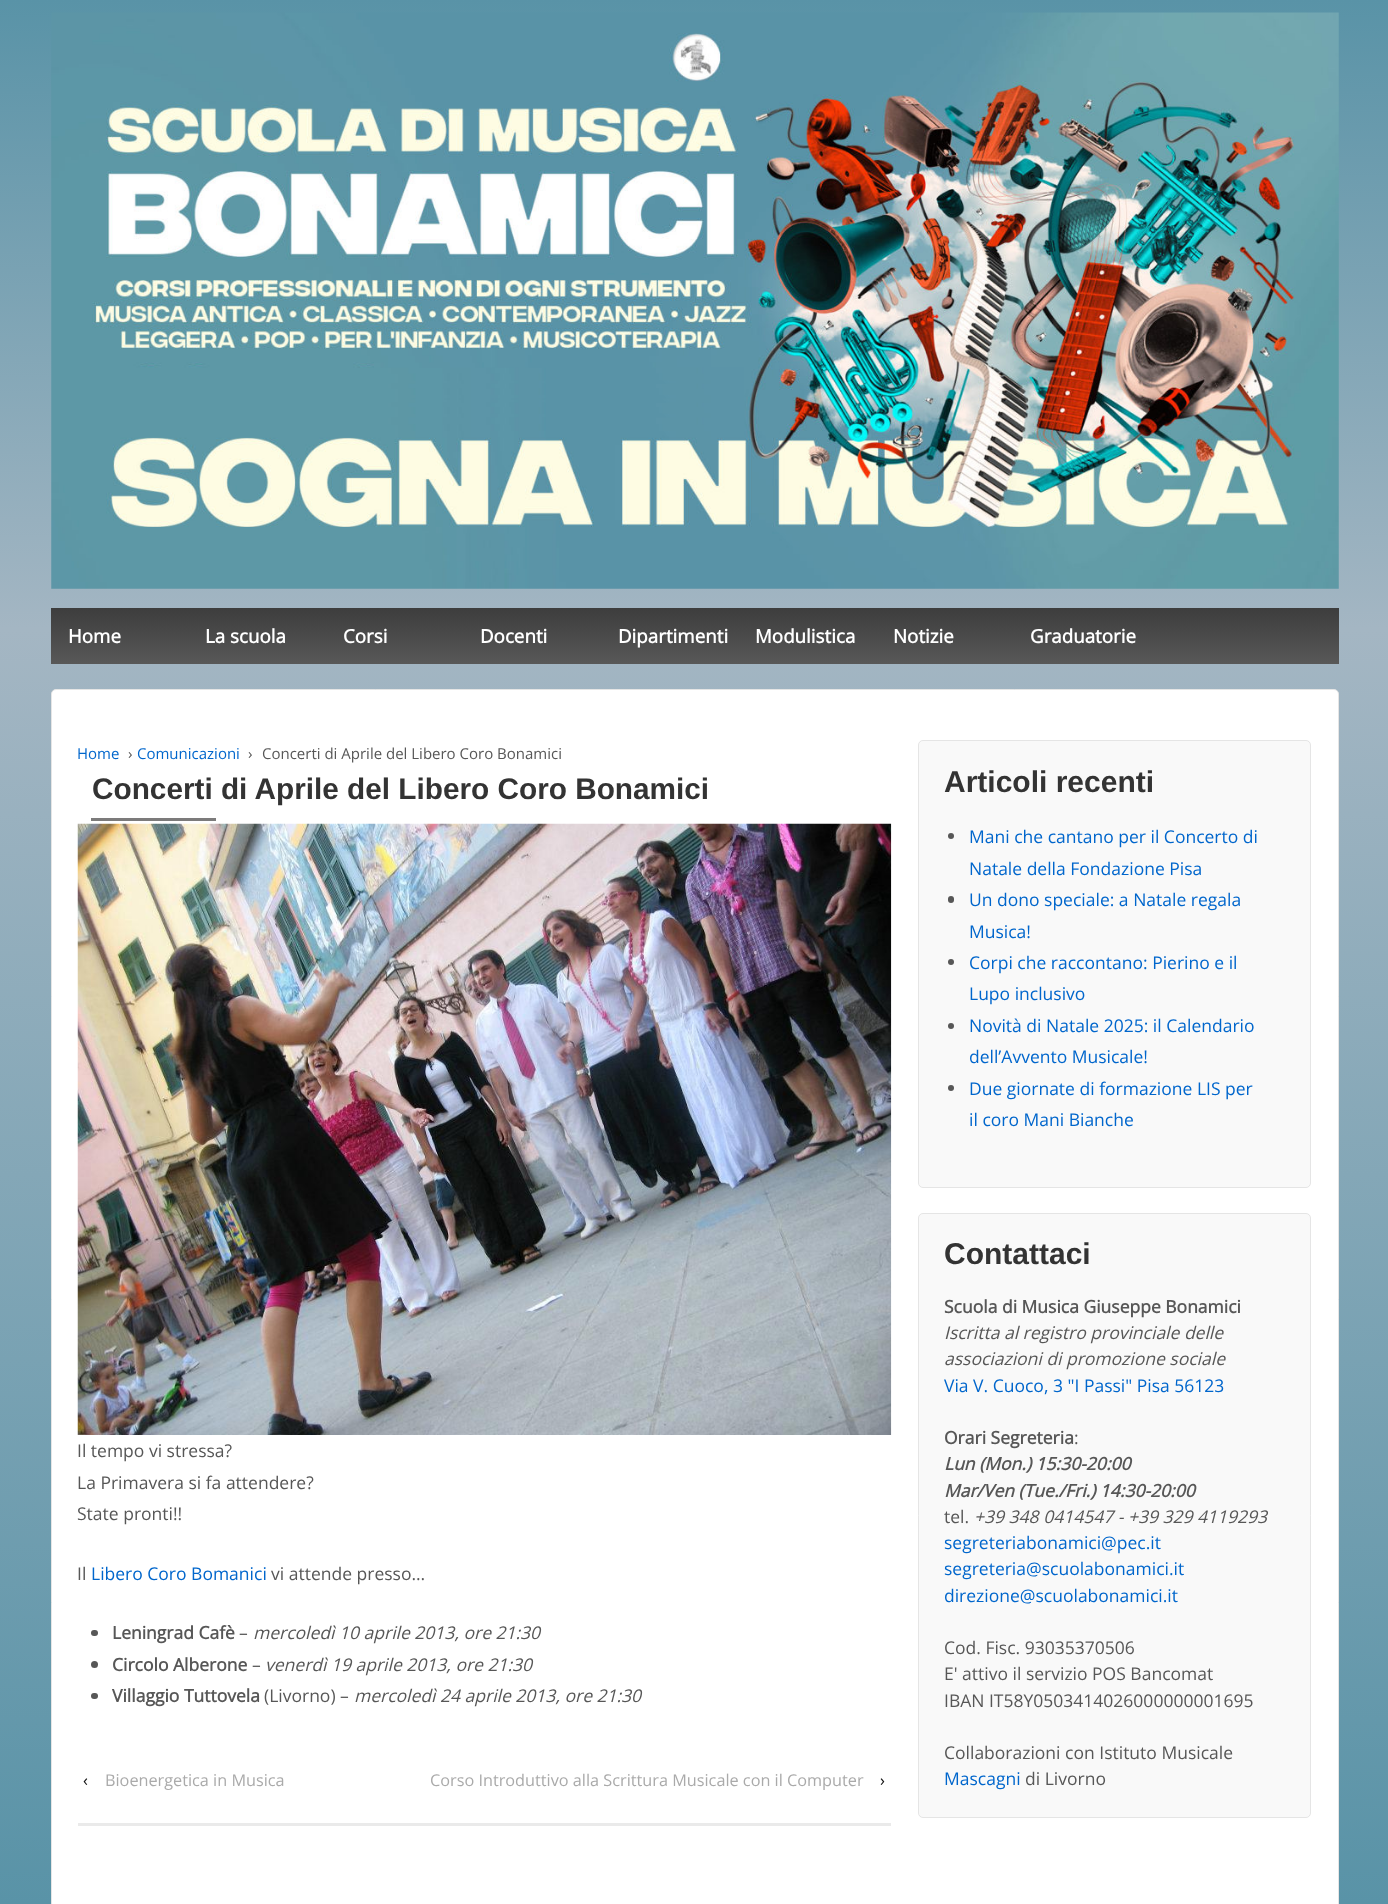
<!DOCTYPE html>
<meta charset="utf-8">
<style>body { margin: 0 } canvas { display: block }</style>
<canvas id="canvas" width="1388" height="1904"></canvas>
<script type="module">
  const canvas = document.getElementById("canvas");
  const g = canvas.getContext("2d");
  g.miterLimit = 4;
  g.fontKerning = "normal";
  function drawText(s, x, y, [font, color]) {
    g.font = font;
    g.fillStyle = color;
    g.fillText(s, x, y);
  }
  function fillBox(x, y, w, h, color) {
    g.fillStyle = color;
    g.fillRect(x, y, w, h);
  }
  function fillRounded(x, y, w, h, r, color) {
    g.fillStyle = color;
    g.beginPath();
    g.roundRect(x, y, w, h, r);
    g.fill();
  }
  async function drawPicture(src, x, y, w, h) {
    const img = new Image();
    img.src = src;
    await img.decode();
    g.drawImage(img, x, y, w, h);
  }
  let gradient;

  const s1 = ["bold 18.75px Open Sans", "#FFFFFF"];
  const s2 = ["15px Open Sans", "#0066CC"];
  const s3 = ["15px Open Sans", "#575757"];
  const s4 = ["bold 29.75px Liberation Sans", "#333333"];
  const s5 = ["17.5px Open Sans", "#575757"];
  const s6 = ["17.5px Open Sans", "#0066CC"];
  const s7 = ["bold 17.5px Open Sans", "#575757"];
  const s8 = ["italic 17.5px Open Sans", "#575757"];
  const s9 = ["16.25px Open Sans", "#111111"];
  const s10 = ["16.25px Open Sans", "#AAAAAA"];
  const s11 = ["bold 30px Liberation Sans", "#333333"];
  const s12 = ["italic bold 17.5px Open Sans", "#575757"];

  fillBox(0, 0, 1388, 1904, "#FFFFFF");
  gradient = g.createLinearGradient(694, 0, 694, 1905);
  gradient.addColorStop(0, "#5993A7");
  gradient.addColorStop(0.33, "#A4B6C3");
  gradient.addColorStop(1, "#5993A7");
  g.fillStyle = gradient;
  g.fillRect(0, 0, 1388, 1904);
  await drawPicture("pic1.png", 51, 12, 1288, 577);
  gradient = g.createLinearGradient(695, 664, 695, 608);
  gradient.addColorStop(0, "#585858");
  gradient.addColorStop(1, "#3D3D3D");
  g.fillStyle = gradient;
  g.fillRect(51, 608, 1288, 56);
  drawText("Home", 68, 643, s1);
  drawText("La scuola", 205, 643, s1);
  drawText("Corsi", 343, 643, s1);
  drawText("Docenti", 480, 643, s1);
  drawText("Dipartimenti", 618, 643, s1);
  drawText("Modulistica", 755, 643, s1);
  drawText("Notizie", 893, 643, s1);
  drawText("Graduatorie", 1030, 643, s1);
  g.beginPath();
  g.roundRect(51.5, 689.5, 1287, 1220, 4.5);
  g.fill();
  g.strokeStyle = "#E5E5E5";
  g.stroke();
  drawText("Home", 77, 759, s2);
  drawText("›", 128, 759, s3);
  drawText("Comunicazioni", 137, 759, s2);
  drawText("›", 248, 759, s3);
  drawText("Concerti di Aprile del Libero Coro Bonamici", 262, 759, s3);
  fillBox(78, 1823, 813, 3, "#EAEAEA");
  drawText("Concerti di Aprile del Libero Coro Bonamici", 92, 799, s4);
  fillBox(91, 818, 125, 3, "#7C7B7B");
  await drawPicture("pic2.png", 77, 823, 815, 612);
  drawText("Il tempo vi stressa?", 77, 1457, s5);
  drawText("La Primavera si fa attendere?", 77, 1489, s5);
  drawText("State pronti!!", 77, 1520, s5);
  drawText("Il", 77, 1580, s5);
  drawText("Libero Coro Bomanici", 91, 1580, s6);
  drawText("vi attende presso…", 271, 1580, s5);
  fillRounded(91, 1630, 7, 6, 3, "#575757");
  drawText("Leningrad Cafè", 112, 1639, s7);
  drawText("–", 239, 1639, s5);
  drawText("mercoledì 10 aprile 2013, ore 21:30", 253, 1639, s8);
  g.beginPath();
  g.arc(94.5, 1664.5, 3.5, 0, Math.PI * 2);
  g.fill();
  drawText("Circolo Alberone", 112, 1671, s7);
  drawText("–", 252, 1671, s5);
  drawText("venerdì 19 aprile 2013, ore 21:30", 265, 1671, s8);
  fillRounded(91, 1693, 7, 6, 3, "#575757");
  drawText("Villaggio Tuttovela", 112, 1702, s7);
  drawText("(Livorno) –", 264, 1702, s5);
  drawText("mercoledì 24 aprile 2013, ore 21:30", 354, 1702, s8);
  drawText("‹", 83, 1786, s9);
  drawText("Bioenergetica in Musica", 105, 1786, s10);
  drawText("Corso Introduttivo alla Scrittura Musicale con il Computer", 430, 1786, s10);
  drawText("›", 880, 1786, s9);
  g.fillStyle = "#F9F9F9";
  g.beginPath();
  g.roundRect(918.5, 740.5, 392, 447, 4.5);
  g.fill();
  g.stroke();
  drawText("Articoli recenti", 944, 792, s11);
  g.fillStyle = "#575757";
  g.beginPath();
  g.arc(951, 836, 3, 0, Math.PI * 2);
  g.fill();
  drawText("Mani che cantano per il Concerto di", 969, 843, s6);
  drawText("Natale della Fondazione Pisa", 969, 875, s6);
  fillRounded(948, 896, 6, 7, 3, "#575757");
  drawText("Un dono speciale: a Natale regala", 969, 906, s6);
  drawText("Musica!", 969, 938, s6);
  g.fillStyle = "#575757";
  g.beginPath();
  g.arc(951, 962, 3, 0, Math.PI * 2);
  g.fill();
  drawText("Corpi che raccontano: Pierino e il", 969, 969, s6);
  drawText("Lupo inclusivo", 969, 1000, s6);
  g.fillStyle = "#575757";
  g.beginPath();
  g.arc(951, 1026, 3, 0, Math.PI * 2);
  g.fill();
  drawText("Novità di Natale 2025: il Calendario", 969, 1032, s6);
  drawText("dell’Avvento Musicale!", 969, 1063, s6);
  g.fillStyle = "#575757";
  g.beginPath();
  g.arc(951, 1088, 3, 0, Math.PI * 2);
  g.fill();
  drawText("Due giornate di formazione LIS per", 969, 1095, s6);
  drawText("il coro Mani Bianche", 969, 1126, s6);
  g.fillStyle = "#F9F9F9";
  g.beginPath();
  g.roundRect(918.5, 1213.5, 392, 604, 4.5);
  g.fill();
  g.stroke();
  drawText("Contattaci", 944, 1264, s11);
  drawText("Scuola di Musica Giuseppe Bonamici", 944, 1313, s7);
  drawText("Iscritta al registro provinciale delle", 944, 1339, s8);
  drawText("associazioni di promozione sociale", 944, 1365, s8);
  drawText("Via V. Cuoco, 3 \"I Passi\" Pisa 56123", 944, 1392, s6);
  drawText("Orari Segreteria", 944, 1444, s7);
  drawText(":", 1074, 1444, s5);
  drawText("Lun (Mon.) 15:30-20:00", 944, 1470, s12);
  drawText("Mar/Ven (Tue./Fri.) 14:30-20:00", 944, 1497, s12);
  drawText("tel.", 944, 1523, s5);
  drawText("+39 348 0414547 - +39 329 4119293", 974, 1523, s8);
  drawText("segreteriabonamici@pec.it", 944, 1549, s6);
  drawText("segreteria@scuolabonamici.it", 944, 1575, s6);
  drawText("direzione@scuolabonamici.it", 944, 1602, s6);
  drawText("Cod. Fisc. 93035370506", 944, 1654, s5);
  drawText("E' attivo il servizio POS Bancomat", 944, 1680, s5);
  drawText("IBAN IT58Y0503414026000000001695", 944, 1707, s5);
  drawText("Collaborazioni con Istituto Musicale", 944, 1759, s5);
  drawText("Mascagni", 944, 1785, s6);
  drawText("di Livorno", 1025, 1785, s5);
</script>
